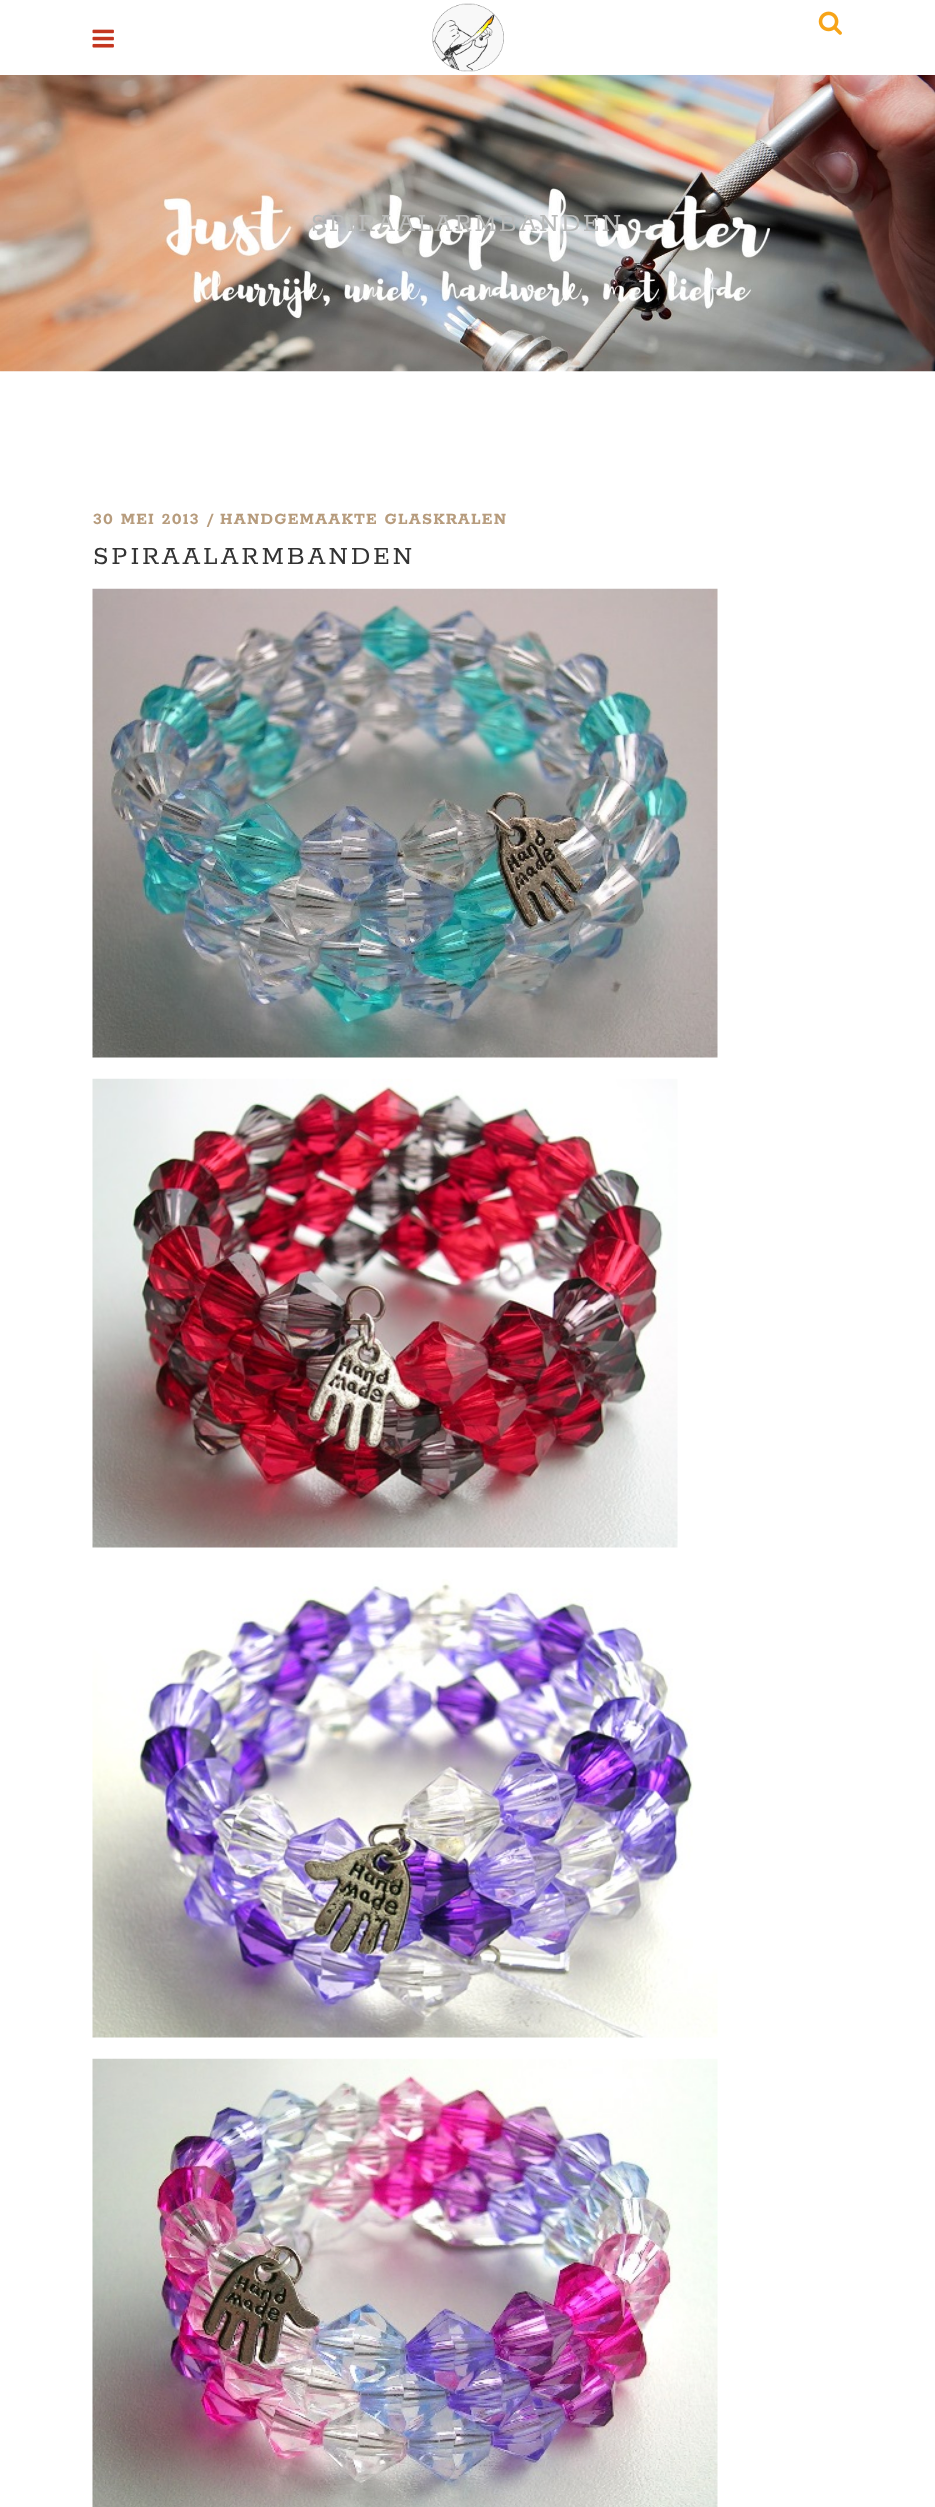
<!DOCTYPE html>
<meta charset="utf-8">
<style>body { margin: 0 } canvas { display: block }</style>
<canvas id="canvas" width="935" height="2507"></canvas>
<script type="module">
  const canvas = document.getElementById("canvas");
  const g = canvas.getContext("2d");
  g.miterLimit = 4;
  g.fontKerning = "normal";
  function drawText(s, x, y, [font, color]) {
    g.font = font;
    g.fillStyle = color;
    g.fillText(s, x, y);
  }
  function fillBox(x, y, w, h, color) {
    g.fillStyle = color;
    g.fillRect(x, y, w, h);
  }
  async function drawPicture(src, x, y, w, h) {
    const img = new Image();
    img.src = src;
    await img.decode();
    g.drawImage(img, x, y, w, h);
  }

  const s1 = ["27.5px Rokkitt", "#B9BAB9"];
  const s2 = ["bold 17.5px Rokkitt", "#B79C7D"];
  const s3 = ["27.5px Rokkitt", "#333333"];

  fillBox(0, 0, 935, 2507, "#FFFFFF");
  await drawPicture("pic1.png", 432, 3, 72, 69);
  await drawPicture("pic2.png", 818, 11, 24, 24);
  await drawPicture("pic3.png", 92, 29, 22, 19);
  await drawPicture("pic4.png", 0, 75, 935, 297);
  g.letterSpacing = "2.5px";
  drawText("SPIRAALARMBANDEN", 311, 231, s1);
  g.letterSpacing = "1.25px";
  drawText("30 MEI 2013 /", 93, 524, s2);
  drawText("HANDGEMAAKTE GLASKRALEN", 220, 524, s2);
  g.letterSpacing = "3.1px";
  drawText("SPIRAALARMBANDEN", 93, 564, s3);
  await drawPicture("pic5.png", 92, 588, 626, 470);
  await drawPicture("pic6.png", 92, 1078, 586, 470);
  await drawPicture("pic7.png", 92, 1579, 626, 459);
  await drawPicture("pic8.png", 92, 2058, 626, 449);
</script>
